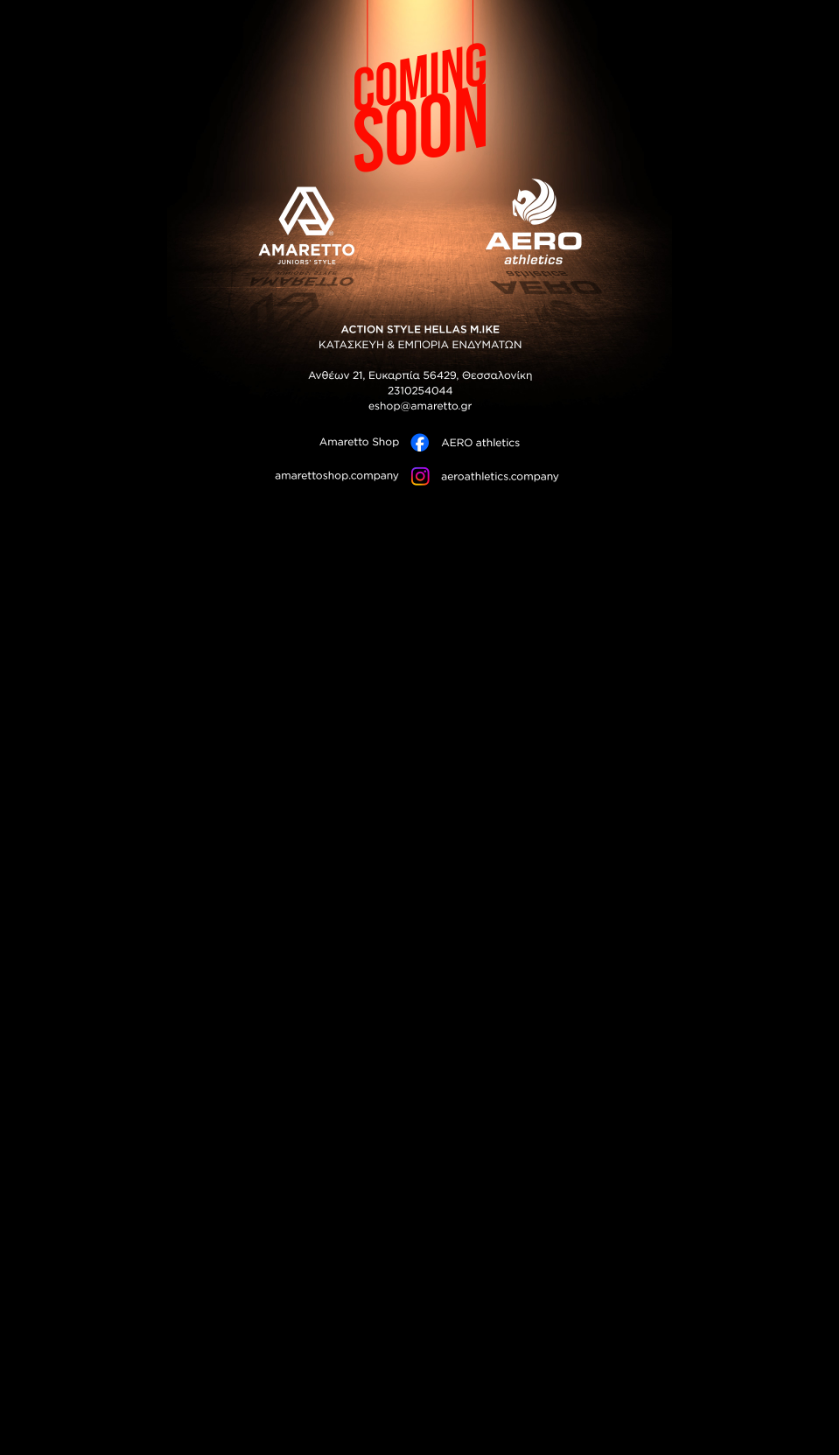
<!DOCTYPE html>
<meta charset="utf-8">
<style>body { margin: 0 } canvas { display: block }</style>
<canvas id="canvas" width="839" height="1455"></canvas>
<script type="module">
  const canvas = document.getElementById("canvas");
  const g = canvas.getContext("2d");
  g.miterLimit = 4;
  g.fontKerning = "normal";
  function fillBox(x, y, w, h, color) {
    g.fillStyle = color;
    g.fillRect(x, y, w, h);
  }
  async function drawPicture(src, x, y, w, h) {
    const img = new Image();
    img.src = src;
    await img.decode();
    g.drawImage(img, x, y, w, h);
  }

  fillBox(0, 0, 839, 1455, "#000000");
  await drawPicture("pic1.png", 167, 0, 505, 486);
</script>
